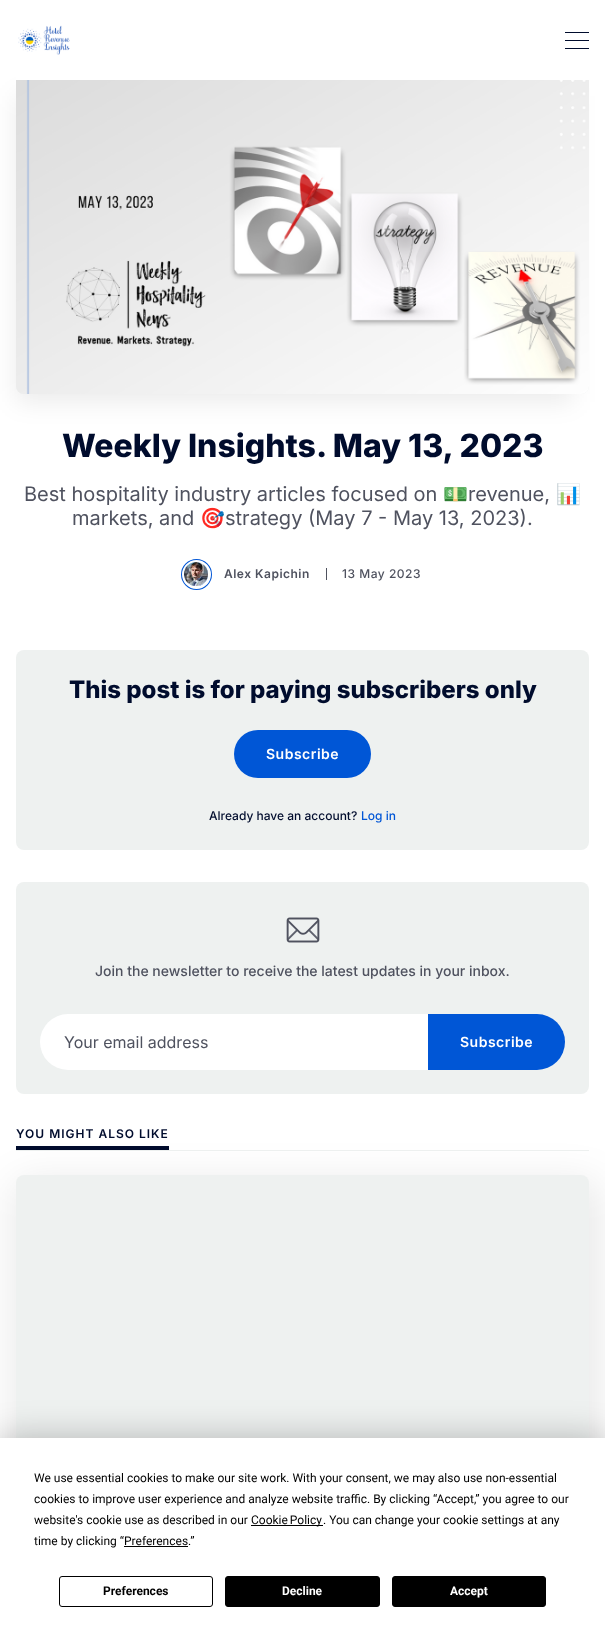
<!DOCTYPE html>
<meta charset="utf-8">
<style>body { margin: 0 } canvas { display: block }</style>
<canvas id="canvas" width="605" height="1637"></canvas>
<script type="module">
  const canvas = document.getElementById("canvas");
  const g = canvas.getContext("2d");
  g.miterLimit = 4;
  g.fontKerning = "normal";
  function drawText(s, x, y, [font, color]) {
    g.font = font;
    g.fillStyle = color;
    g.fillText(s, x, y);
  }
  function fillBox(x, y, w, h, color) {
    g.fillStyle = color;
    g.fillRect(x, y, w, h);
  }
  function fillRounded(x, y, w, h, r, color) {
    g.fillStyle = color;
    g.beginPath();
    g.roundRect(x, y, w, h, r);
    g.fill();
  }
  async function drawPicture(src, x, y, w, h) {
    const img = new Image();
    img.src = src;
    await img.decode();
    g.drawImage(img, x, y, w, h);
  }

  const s1 = ["800 32px Inter", "#000C2D"];
  const s2 = ["20px Inter", "#4F525F"];
  const s3 = ["20px Noto Color Emoji", "#4F525F"];
  const s4 = ["600 12px Inter", "#4F525F"];
  const s5 = ["500 12px Inter", "#4F525F"];
  const s6 = ["800 24px Inter", "#000C2D"];
  const s7 = ["600 14px Inter", "#FFFFFF"];
  const s8 = ["500 12px Inter", "#000C2D"];
  const s9 = ["500 12px Inter", "#0056D6"];
  const s10 = ["500 14px Inter", "#4F525F"];
  const s11 = ["16px Inter", "#4F525F"];
  const s12 = ["600 12px Inter", "#000C2D"];
  const s13 = ["12px Roboto", "#000000"];
  const s14 = ["bold 12px Roboto", "#000000"];
  const s15 = ["bold 12px Roboto", "#FFFFFF"];

  fillBox(0, 0, 605, 1637, "#FFFFFF");
  g.fillStyle = "rgba(0, 0, 0, 0.08)";
  g.filter = "blur(12px)";
  g.beginPath();
  g.rect(16, 96, 557, 306);
  g.fill();
  g.filter = "none";
  fillRounded(16, 72, 573, 322, 8, "#EEF1F0");
  fillBox(16, 72, 573, 8, "#FFFFFF");
  await drawPicture("pic1.png", 18, 25, 52, 30);
  fillBox(565, 32, 24, 1, "#000C2D");
  fillBox(565, 40, 24, 1, "#000C2D");
  fillBox(565, 48, 24, 1, "#000C2D");
  await drawPicture("pic2.png", 16, 80, 573, 314);
  drawText("Weekly Insights. May 13, 2023", 62, 457, s1);
  drawText("Best hospitality industry articles focused on", 24, 501, s2);
  drawText("💵", 443, 501, s3);
  drawText("revenue,", 468, 501, s2);
  drawText("📊", 556, 501, s3);
  drawText("markets, and", 72, 525, s2);
  drawText("🎯", 200, 525, s3);
  drawText("strategy (May 7 - May 13, 2023).", 225, 525, s2);
  g.beginPath();
  g.arc(196.5, 574.5, 13.5, 0, Math.PI * 2);
  g.strokeStyle = "#0056D6";
  g.lineWidth = 4;
  g.stroke();
  g.beginPath();
  g.arc(196.5, 574.5, 13, 0, Math.PI * 2);
  g.strokeStyle = "#FFFFFF";
  g.lineWidth = 3;
  g.stroke();
  await drawPicture("pic3.png", 184, 562, 24, 24);
  g.letterSpacing = "0.5px";
  drawText("Alex Kapichin", 224, 578, s4);
  fillBox(326, 568, 1, 12, "#4F525F");
  drawText("13 May 2023", 342, 578, s5);
  fillRounded(16, 650, 573, 200, 8, "#EEF1F0");
  g.letterSpacing = "0px";
  drawText("This post is for paying subscribers only", 69, 698, s6);
  fillRounded(234, 730, 137, 48, 24, "#0056D6");
  g.letterSpacing = "0.5px";
  drawText("Subscribe", 266, 759, s7);
  g.letterSpacing = "0px";
  drawText("Already have an account?", 209, 820, s8);
  drawText("Log in", 361, 820, s9);
  fillRounded(16, 882, 573, 212, 8, "#EEF1F0");
  await drawPicture("pic4.png", 286, 917, 34, 26);
  drawText("Join the newsletter to receive the latest updates in your inbox.", 95, 976, s10);
  g.fillStyle = "#FFFFFF";
  g.beginPath();
  g.roundRect(40, 1014, 388, 56, [28, 0, 0, 28]);
  g.fill();
  drawText("Your email address", 64, 1048, s11);
  g.fillStyle = "#0056D6";
  g.beginPath();
  g.roundRect(428, 1014, 137, 56, [0, 28, 28, 0]);
  g.fill();
  g.letterSpacing = "0.5px";
  drawText("Subscribe", 460, 1047, s7);
  fillBox(16, 1150, 573, 1, "#EEF1F0");
  fillBox(16, 1146, 153, 4, "#000C2D");
  g.fillStyle = "rgba(0, 0, 0, 0.09)";
  g.filter = "blur(20px)";
  g.beginPath();
  g.roundRect(14, 1181, 585, 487, 14);
  g.fill();
  g.filter = "none";
  g.fillStyle = "#EEF1F0";
  g.beginPath();
  g.roundRect(16, 1175, 573, 323, [8, 8, 0, 0]);
  g.fill();
  g.letterSpacing = "1px";
  drawText("YOU MIGHT ALSO LIKE", 16, 1138, s12);
  g.fillStyle = "rgba(0, 0, 0, 0.25)";
  g.filter = "blur(17.5px)";
  g.beginPath();
  g.rect(0, 1438, 605, 199);
  g.fill();
  g.filter = "none";
  fillBox(0, 1438, 605, 199, "#FFFFFF");
  g.letterSpacing = "0px";
  drawText("We use essential cookies to make our site work. With your consent, we may also use non-essential", 34, 1482, s13);
  drawText("cookies to improve user experience and analyze website traffic. By clicking “Accept,” you agree to our", 34, 1503, s13);
  drawText("website's cookie use as described in our", 34, 1524, s13);
  fillBox(251, 1525, 72, 1, "#000000");
  g.wordSpacing = "-1px";
  drawText("Cookie Policy", 251, 1524, s13);
  g.wordSpacing = "0px";
  drawText(". You can change your cookie settings at any", 323, 1524, s13);
  drawText("time by clicking “Preferences.”", 34, 1545, s13);
  fillBox(124, 1546, 64, 1, "#000000");
  g.beginPath();
  g.roundRect(59.5, 1576.5, 153, 30, 2.5);
  g.strokeStyle = "#000000";
  g.lineWidth = 1;
  g.stroke();
  drawText("Preferences", 103, 1595, s14);
  g.beginPath();
  g.roundRect(225.5, 1576.5, 154, 30, 2.5);
  g.fill();
  g.stroke();
  drawText("Decline", 282, 1595, s15);
  g.fillStyle = "#000000";
  g.beginPath();
  g.roundRect(392.5, 1576.5, 153, 30, 2.5);
  g.fill();
  g.stroke();
  drawText("Accept", 450, 1595, s15);
</script>
